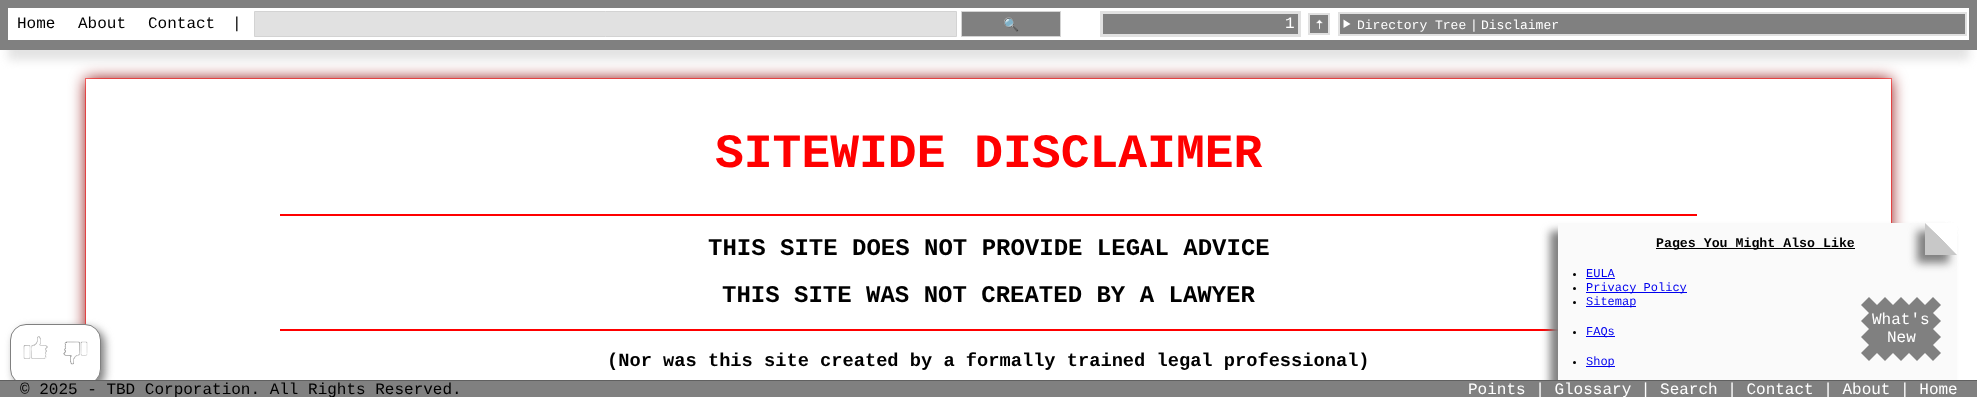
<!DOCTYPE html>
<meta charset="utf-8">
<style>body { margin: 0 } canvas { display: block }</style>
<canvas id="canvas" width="1977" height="397"></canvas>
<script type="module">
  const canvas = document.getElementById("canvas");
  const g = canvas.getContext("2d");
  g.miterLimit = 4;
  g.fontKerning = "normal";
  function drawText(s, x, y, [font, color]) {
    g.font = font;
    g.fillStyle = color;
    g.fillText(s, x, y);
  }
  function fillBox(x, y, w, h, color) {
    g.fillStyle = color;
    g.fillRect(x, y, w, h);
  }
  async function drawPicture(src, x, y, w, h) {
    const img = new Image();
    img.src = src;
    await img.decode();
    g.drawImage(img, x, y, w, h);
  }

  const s1 = ["16px Liberation Mono", "#000000"];
  const s2 = ["13px Noto Color Emoji", "#FFFFFF"];
  const s3 = ["16px Liberation Mono", "#FFFFFF"];
  const s4 = ["13px Liberation Mono", "#FFFFFF"];
  const s5 = ["bold 24px Liberation Mono", "#000000"];
  const s6 = ["bold 18.7px Liberation Mono", "#000000"];
  const s7 = ["bold 48px Liberation Mono", "#FF0000"];
  const s8 = ["bold 13.25px Liberation Mono", "#000000"];
  const s9 = ["12px Liberation Mono", "#0000EE"];

  fillBox(0, 0, 1977, 397, "#FFFFFF");
  g.save();
  g.beginPath();
  g.rect(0, 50, 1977, 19);
  g.clip();
  g.fillStyle = "rgba(200, 200, 200, 0.5)";
  g.filter = "blur(5px)";
  g.beginPath();
  g.rect(8, 28, 1961, 32);
  g.fill();
  g.filter = "none";
  g.restore();
  g.fillStyle = "#E1E1E1";
  g.beginPath();
  g.rect(254.5, 11.5, 702, 25);
  g.fill();
  g.strokeStyle = "#D3D3D3";
  g.stroke();
  g.fillStyle = "#808080";
  g.beginPath();
  g.rect(961.5, 11.5, 99, 25);
  g.fill();
  g.stroke();
  await drawPicture("pic1.png", 1310, 15, 18, 18);
  g.strokeStyle = "#E1E1E1";
  g.lineWidth = 2;
  g.strokeRect(1309, 14, 20, 20);
  fillBox(1340, 14, 625, 20, "#808080");
  g.strokeRect(1339, 13, 627, 22);
  g.strokeStyle = "#808080";
  g.lineWidth = 10;
  g.strokeRect(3, 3, 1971, 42);
  drawText("Home", 17, 28, s1);
  drawText("About", 78, 28, s1);
  drawText("Contact", 148, 28, s1);
  drawText("|", 232, 28, s1);
  drawText("🔍", 1003, 29, s2);
  fillBox(1103, 14, 195, 20, "#808080");
  g.strokeStyle = "#E1E1E1";
  g.lineWidth = 3;
  g.strokeRect(1101.5, 12.5, 198, 23);
  drawText("1", 1285, 28, s3);
  g.beginPath();
  g.moveTo(1343.5, 19.5);
  g.lineTo(1350.5, 24);
  g.lineTo(1343.5, 28);
  g.closePath();
  g.fill();
  drawText("Directory Tree", 1357, 29, s4);
  drawText("|", 1470, 29, s4);
  drawText("Disclaimer", 1481, 29, s4);
  g.save();
  g.beginPath();
  g.moveTo(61, 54);
  g.lineTo(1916, 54);
  g.lineTo(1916, 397);
  g.lineTo(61, 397);
  g.closePath();
  g.moveTo(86, 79);
  g.lineTo(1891, 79);
  g.lineTo(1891, 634);
  g.lineTo(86, 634);
  g.closePath();
  g.clip("evenodd");
  g.fillStyle = "#8B0000";
  g.filter = "blur(8px)";
  g.beginPath();
  g.rect(86, 79, 1805, 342);
  g.fill();
  g.filter = "none";
  g.restore();
  drawText("THIS SITE DOES NOT PROVIDE LEGAL ADVICE", 708, 255, s5);
  drawText("THIS SITE WAS NOT CREATED BY A LAWYER", 722, 302, s5);
  drawText("(Nor was this site created by a formally trained legal professional)", 607, 366, s6);
  g.beginPath();
  g.moveTo(85.5, 78.5);
  g.lineTo(1891.5, 78.5);
  g.lineTo(1891.5, 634.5);
  g.lineTo(85.5, 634.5);
  g.closePath();
  g.strokeStyle = "#FF0000";
  g.lineWidth = 1;
  g.setLineDash([1, 1]);
  g.stroke();
  g.fillStyle = "#808080";
  g.filter = "blur(4px)";
  g.beginPath();
  g.roundRect(14, 328, 91, 61, 16);
  g.fill();
  g.filter = "none";
  g.fillStyle = "#FFFFFF";
  g.beginPath();
  g.roundRect(10.5, 324.5, 90, 60, 15.5);
  g.fill();
  g.strokeStyle = "#808080";
  g.setLineDash([]);
  g.stroke();
  await drawPicture("pic2.png", 23, 336, 25, 23);
  await drawPicture("pic3.png", 63, 341, 25, 24);
  drawText("SITEWIDE DISCLAIMER", 715, 167, s7);
  fillBox(280, 214, 1417, 2, "#FF0000");
  fillBox(280, 329, 1278, 2, "#FF0000");
  g.fillStyle = "#808080";
  g.filter = "blur(4px)";
  g.beginPath();
  g.rect(1550, 231, 399, 162);
  g.fill();
  g.filter = "none";
  fillBox(1558, 223, 399, 157, "#FAFAFA");
  fillBox(1656, 248, 199, 1, "#000000");
  drawText("Pages You Might Also Like", 1656, 247, s8);
  g.fillStyle = "#808080";
  g.filter = "blur(4px)";
  g.beginPath();
  g.rect(1917, 231, 32, 32);
  g.fill();
  g.filter = "none";
  g.fillStyle = "#FFFFFF";
  g.beginPath();
  g.moveTo(1925, 223);
  g.lineTo(1957, 223);
  g.lineTo(1957, 255);
  g.closePath();
  g.fill();
  g.fillStyle = "#C8C8C8";
  g.beginPath();
  g.moveTo(1925, 255);
  g.lineTo(1925, 223);
  g.lineTo(1957, 255);
  g.closePath();
  g.fill();
  g.fillStyle = "#000000";
  g.beginPath();
  g.arc(1574.5, 274.5, 1.5, 0, Math.PI * 2);
  g.fill();
  drawText("EULA", 1586, 277, s9);
  fillBox(1586, 278, 29, 1, "#0000EE");
  g.fillStyle = "#000000";
  g.beginPath();
  g.arc(1574.5, 288.5, 1.5, 0, Math.PI * 2);
  g.fill();
  fillBox(1586, 292, 101, 1, "#0000EE");
  drawText("Privacy Policy", 1586, 291, s9);
  g.fillStyle = "#000000";
  g.beginPath();
  g.arc(1574.5, 302.5, 1.5, 0, Math.PI * 2);
  g.fill();
  fillBox(1586, 306, 50, 1, "#0000EE");
  drawText("Sitemap", 1586, 305, s9);
  g.fillStyle = "#000000";
  g.beginPath();
  g.arc(1574.5, 332.5, 1.5, 0, Math.PI * 2);
  g.fill();
  fillBox(1586, 336, 29, 1, "#0000EE");
  drawText("FAQs", 1586, 335, s9);
  g.fillStyle = "#808080";
  g.beginPath();
  g.moveTo(1869, 297);
  g.lineTo(1877, 305);
  g.lineTo(1885, 297);
  g.lineTo(1893, 305);
  g.lineTo(1901, 297);
  g.lineTo(1909, 305);
  g.lineTo(1917, 297);
  g.lineTo(1925, 305);
  g.lineTo(1933, 297);
  g.lineTo(1941, 305);
  g.lineTo(1933, 313);
  g.lineTo(1941, 321);
  g.lineTo(1933, 329);
  g.lineTo(1941, 337);
  g.lineTo(1933, 345);
  g.lineTo(1941, 353);
  g.lineTo(1933, 361);
  g.lineTo(1925, 353);
  g.lineTo(1917, 361);
  g.lineTo(1909, 353);
  g.lineTo(1901, 361);
  g.lineTo(1893, 353);
  g.lineTo(1885, 361);
  g.lineTo(1877, 353);
  g.lineTo(1869, 361);
  g.lineTo(1861, 353);
  g.lineTo(1869, 345);
  g.lineTo(1861, 337);
  g.lineTo(1869, 329);
  g.lineTo(1861, 321);
  g.lineTo(1869, 313);
  g.lineTo(1861, 305);
  g.closePath();
  g.fill();
  drawText("What's", 1872, 324, s3);
  drawText("New", 1887, 342, s3);
  g.fillStyle = "#000000";
  g.beginPath();
  g.arc(1574.5, 362.5, 1.5, 0, Math.PI * 2);
  g.fill();
  fillBox(1586, 366, 29, 1, "#0000EE");
  drawText("Shop", 1586, 365, s9);
  fillBox(0, 381, 1977, 16, "#808080");
  fillBox(0, 380, 1977, 1, "#606060");
  drawText("© 2025 - TBD Corporation. All Rights Reserved.", 20, 394, s1);
  drawText("Points | Glossary | Search | Contact | About | Home", 1468, 394, s3);
</script>
